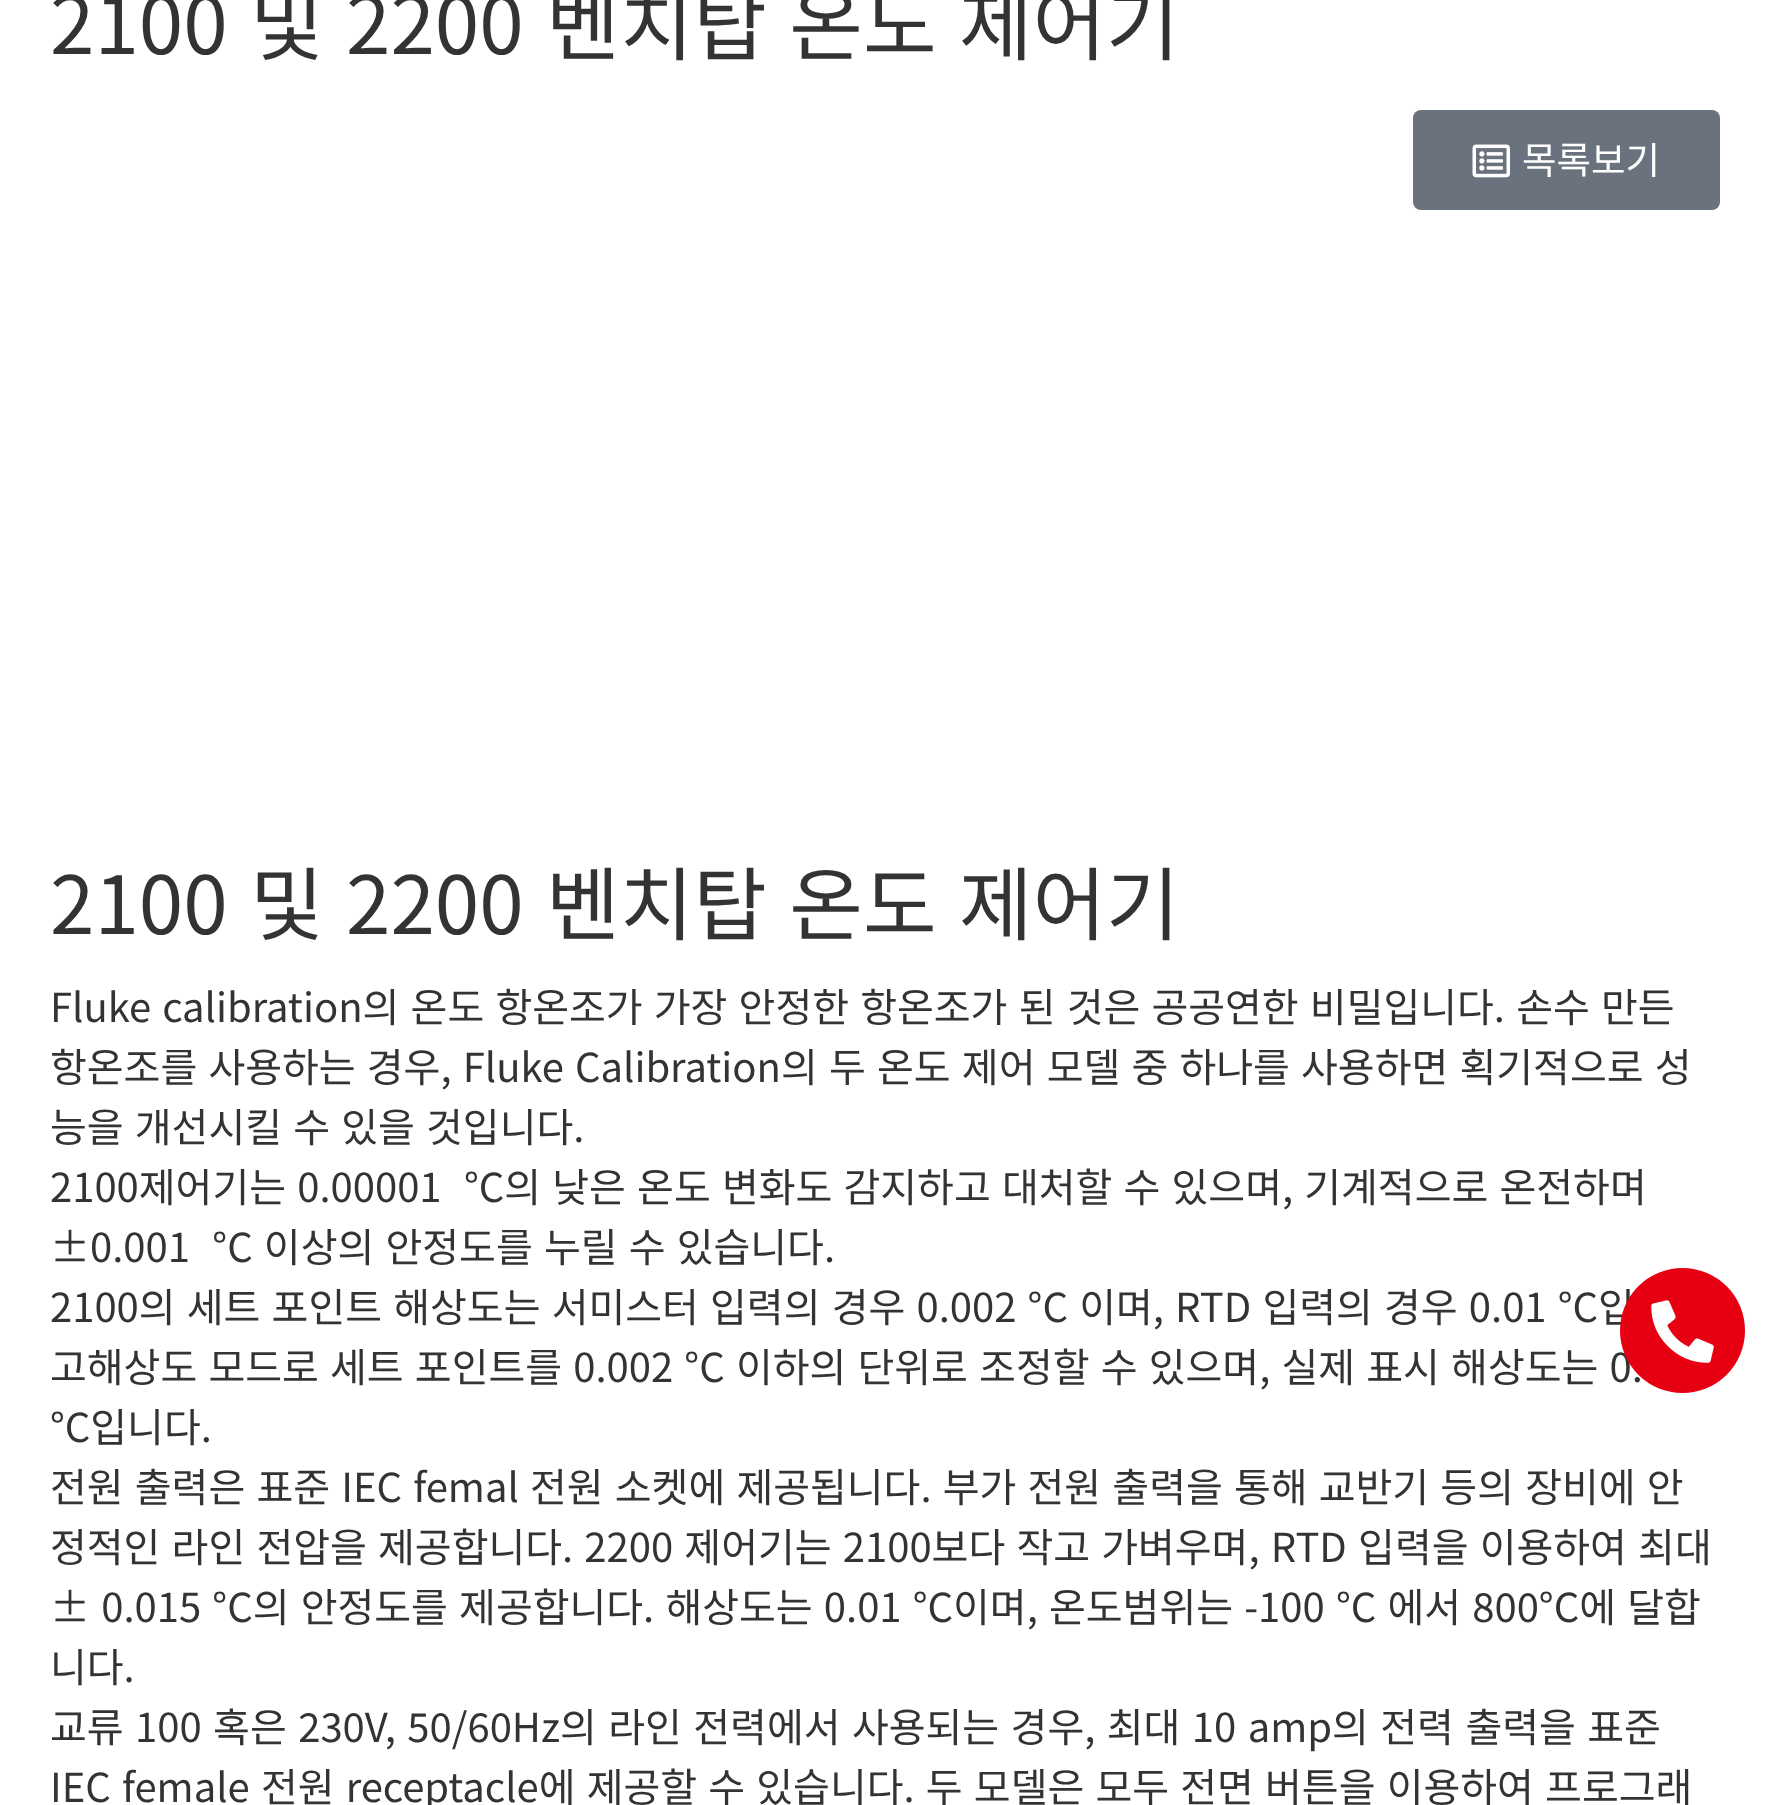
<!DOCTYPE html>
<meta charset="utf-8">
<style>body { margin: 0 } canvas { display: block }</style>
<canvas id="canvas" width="1770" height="1805"></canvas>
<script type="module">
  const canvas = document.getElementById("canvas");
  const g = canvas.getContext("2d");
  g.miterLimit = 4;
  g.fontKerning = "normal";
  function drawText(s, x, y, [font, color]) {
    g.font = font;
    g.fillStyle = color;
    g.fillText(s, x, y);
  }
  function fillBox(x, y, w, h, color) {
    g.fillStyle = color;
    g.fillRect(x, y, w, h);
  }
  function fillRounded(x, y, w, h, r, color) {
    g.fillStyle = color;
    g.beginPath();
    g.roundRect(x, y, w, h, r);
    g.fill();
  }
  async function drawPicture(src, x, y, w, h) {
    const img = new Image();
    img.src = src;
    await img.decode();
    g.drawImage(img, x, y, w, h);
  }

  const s1 = ["100 80px Noto Sans KR", "#333333"];
  const s2 = ["100 37.5px Noto Sans KR", "#FFFFFF"];
  const s3 = ["100 40px Noto Sans KR", "#333333"];

  fillBox(0, 0, 1770, 1805, "#FFFFFF");
  g.wordSpacing = "4.5px";
  drawText("2100 및 2200 벤치탑 온도 제어기", 50, 54, s1);
  fillRounded(1413, 110, 307, 100, 8, "#69727D");
  await drawPicture("pic1.png", 1472, 144, 38, 34);
  g.wordSpacing = "0px";
  drawText("목록보기", 1522, 174, s2);
  g.wordSpacing = "4.5px";
  drawText("2100 및 2200 벤치탑 온도 제어기", 50, 934, s1);
  g.wordSpacing = "2.25px";
  drawText("Fluke calibration의 온도 항온조가 가장 안정한 항온조가 된 것은 공공연한 비밀입니다. 손수 만든", 50, 1022, s3);
  drawText("항온조를 사용하는 경우, Fluke Calibration의 두 온도 제어 모델 중 하나를 사용하면 획기적으로 성", 50, 1082, s3);
  drawText("능을 개선시킬 수 있을 것입니다.", 50, 1142, s3);
  drawText("2100제어기는 0.00001  °C의 낮은 온도 변화도 감지하고 대처할 수 있으며, 기계적으로 온전하며", 50, 1202, s3);
  drawText("±0.001  °C 이상의 안정도를 누릴 수 있습니다.", 50, 1262, s3);
  drawText("2100의 세트 포인트 해상도는 서미스터 입력의 경우 0.002 °C 이며, RTD 입력의 경우 0.01 °C입", 50, 1322, s3);
  drawText("고해상도 모드로 세트 포인트를 0.002 °C 이하의 단위로 조정할 수 있으며, 실제 표시 해상도는 0.", 50, 1382, s3);
  g.wordSpacing = "0px";
  drawText("°C입니다.", 50, 1442, s3);
  g.wordSpacing = "2.25px";
  drawText("전원 출력은 표준 IEC femal 전원 소켓에 제공됩니다. 부가 전원 출력을 통해 교반기 등의 장비에 안", 50, 1502, s3);
  drawText("정적인 라인 전압을 제공합니다. 2200 제어기는 2100보다 작고 가벼우며, RTD 입력을 이용하여 최대", 50, 1562, s3);
  drawText("± 0.015 °C의 안정도를 제공합니다. 해상도는 0.01 °C이며, 온도범위는 -100 °C 에서 800°C에 달합", 50, 1622, s3);
  g.wordSpacing = "0px";
  drawText("니다.", 50, 1682, s3);
  g.wordSpacing = "2.5px";
  drawText("교류 100 혹은 230V, 50/60Hz의 라인 전력에서 사용되는 경우, 최대 10 amp의 전력 출력을 표준", 50, 1742, s3);
  g.wordSpacing = "2.25px";
  drawText("IEC female 전원 receptacle에 제공할 수 있습니다. 두 모델은 모두 전면 버튼을 이용하여 프로그래", 50, 1802, s3);
  g.fillStyle = "#E60012";
  g.beginPath();
  g.arc(1682.5, 1330.5, 62.5, 0, Math.PI * 2);
  g.fill();
  await drawPicture("pic2.png", 1651, 1300, 63, 63);
</script>
